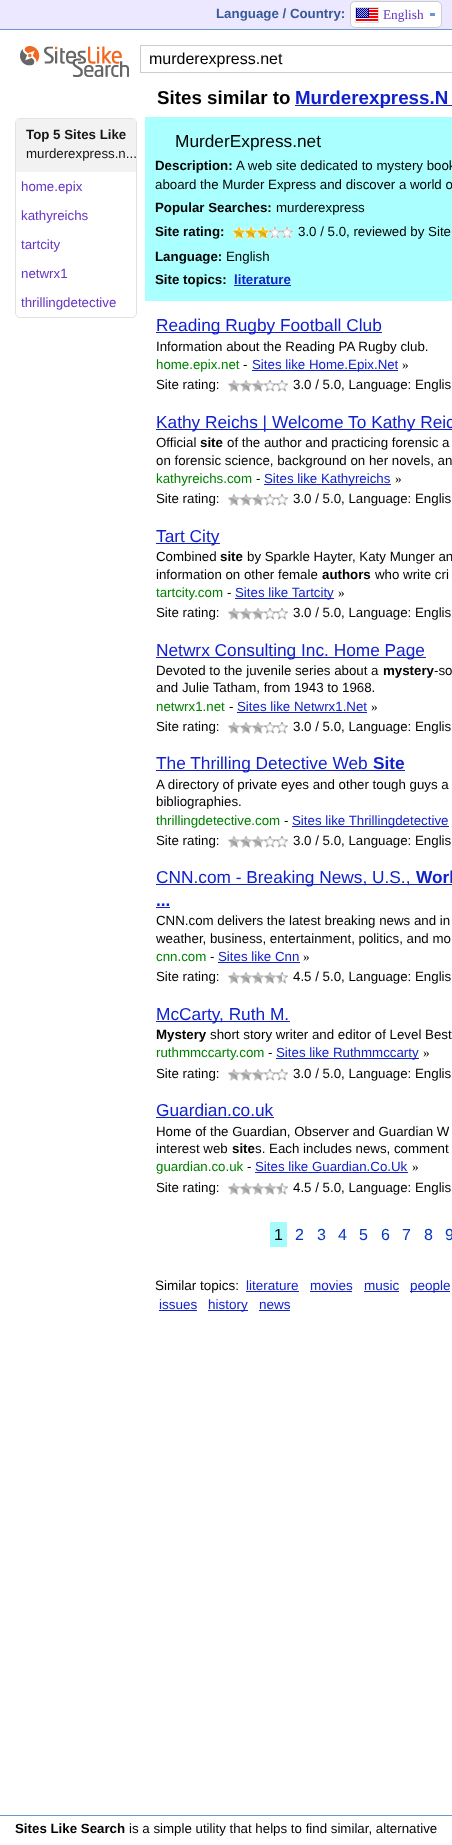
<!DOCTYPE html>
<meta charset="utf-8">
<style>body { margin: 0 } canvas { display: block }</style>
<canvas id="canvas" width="452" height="1845"></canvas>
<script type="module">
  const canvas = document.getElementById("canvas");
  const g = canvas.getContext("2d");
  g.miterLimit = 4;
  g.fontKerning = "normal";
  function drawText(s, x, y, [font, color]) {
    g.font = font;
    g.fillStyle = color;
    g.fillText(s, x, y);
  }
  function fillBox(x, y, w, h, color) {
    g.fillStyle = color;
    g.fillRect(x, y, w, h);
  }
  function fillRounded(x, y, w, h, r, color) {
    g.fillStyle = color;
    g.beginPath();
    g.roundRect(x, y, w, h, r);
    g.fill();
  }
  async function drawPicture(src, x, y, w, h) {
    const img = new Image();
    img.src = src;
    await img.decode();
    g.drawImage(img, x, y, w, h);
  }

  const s1 = ["bold 13.3px Liberation Sans", "#3B5998"];
  const s2 = ["13.3px Liberation Serif", "#6636C3"];
  const s3 = ["16px Liberation Sans", "#000000"];
  const s4 = ["bold 18.75px Liberation Sans", "#000000"];
  const s5 = ["bold 18.75px Liberation Sans", "#1122CC"];
  const s6 = ["bold 13.3px Liberation Sans", "#151515"];
  const s7 = ["13.3px Liberation Sans", "#151515"];
  const s8 = ["13.3px Liberation Sans", "#6636C3"];
  const s9 = ["17.3px Liberation Sans", "#000000"];
  const s10 = ["bold 13.3px Liberation Sans", "#000000"];
  const s11 = ["13.3px Liberation Sans", "#000000"];
  const s12 = ["bold 13.3px Liberation Sans", "#1122CC"];
  const s13 = ["17.3px Liberation Sans", "#1122CC"];
  const s14 = ["13.3px Liberation Sans", "#008000"];
  const s15 = ["13.3px Liberation Sans", "#1122CC"];
  const s16 = ["13.3px Liberation Serif", "#000000"];
  const s17 = ["bold 17.3px Liberation Sans", "#1122CC"];
  const s18 = ["16px Liberation Sans", "#0036C3"];
  const s19 = ["13.5px Liberation Sans", "#000000"];
  const s20 = ["13.5px Liberation Sans", "#1122CC"];

  fillBox(0, 0, 452, 1845, "#FFFFFF");
  fillBox(0, 0, 452, 29, "#EBE8FF");
  fillBox(0, 29, 452, 1, "#6A98CD");
  drawText("Language / Country:", 216, 18, s1);
  g.fillStyle = "#FFFFFF";
  g.beginPath();
  g.roundRect(350.5, 1.5, 91, 26, 4.5);
  g.fill();
  g.strokeStyle = "#CCCCCC";
  g.stroke();
  fillRounded(351, 2, 90, 25, 5, "#FFFFFF");
  await drawPicture("pic1.png", 356, 8, 22, 14);
  g.strokeStyle = "#DDDDDD";
  g.strokeRect(355.5, 7.5, 23, 15);
  drawText("English", 383, 19, s2);
  fillBox(430, 13, 5, 3, "#6A98CD");
  await drawPicture("pic2.png", 20, 46, 109, 31);
  g.strokeStyle = "#CCCCCC";
  g.strokeRect(140.5, 45.5, 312, 27);
  drawText("murderexpress.net", 149, 64, s3);
  drawText("Sites similar to", 157, 104, s4);
  fillBox(295, 105, 157, 1, "#1122CC");
  drawText("Murderexpress.N", 295, 104, s5);
  g.beginPath();
  g.roundRect(15.5, 118.5, 121, 199, 4.5);
  g.strokeStyle = "#E2E2E2";
  g.stroke();
  g.fillStyle = "#F2F2F2";
  g.beginPath();
  g.roundRect(16, 119, 120, 53, [4, 4, 0, 0]);
  g.fill();
  drawText("Top 5 Sites Like", 26, 139, s6);
  drawText("murderexpress.n...", 26, 158, s7);
  drawText("home.epix", 21, 191, s8);
  drawText("kathyreichs", 21, 220, s8);
  drawText("tartcity", 21, 249, s8);
  drawText("netwrx1", 21, 278, s8);
  drawText("thrillingdetective", 21, 307, s8);
  fillBox(145, 117, 307, 184, "#AAFFFF");
  drawText("MurderExpress.net", 175, 147, s9);
  drawText("Description:", 155, 170, s10);
  drawText("A web site dedicated to mystery book", 236, 170, s11);
  drawText("aboard the Murder Express and discover a world o", 155, 189, s11);
  drawText("Popular Searches:", 155, 212, s10);
  drawText("murderexpress", 276, 212, s11);
  drawText("Site rating:", 155, 236, s10);
  await drawPicture("pic3.png", 269, 227, 24, 12);
  await drawPicture("pic4.png", 233, 227, 36, 12);
  drawText("3.0 / 5.0, reviewed by Site", 298, 236, s11);
  drawText("Language:", 155, 261, s10);
  drawText("English", 226, 261, s11);
  drawText("Site topics:", 155, 284, s10);
  drawText("literature", 234, 284, s12);
  fillBox(234, 285, 57, 1, "#1122CC");
  fillBox(156, 332, 226, 1, "#1122CC");
  drawText("Reading Rugby Football Club", 156, 331, s13);
  drawText("Information about the Reading PA Rugby club.", 156, 351, s11);
  drawText("home.epix.net", 156, 369, s14);
  drawText("-", 243, 369, s11);
  fillBox(252, 370, 146, 1, "#1122CC");
  drawText("Sites like Home.Epix.Net", 252, 369, s15);
  drawText("»", 402, 369, s16);
  drawText("Site rating:", 156, 389, s11);
  await drawPicture("pic5.png", 264, 380, 24, 12);
  await drawPicture("pic6.png", 228, 380, 36, 12);
  drawText("3.0 / 5.0, Language: Englis", 293, 389, s11);
  fillBox(156, 429, 296, 1, "#1122CC");
  drawText("Kathy Reichs | Welcome To Kathy Reic", 156, 428, s13);
  drawText("Official", 156, 447, s11);
  drawText("site", 200, 447, s10);
  drawText("of the author and practicing forensic a", 227, 447, s11);
  drawText("on forensic science, background on her novels, an", 156, 465, s11);
  drawText("kathyreichs.com", 156, 483, s14);
  drawText("-", 256, 483, s11);
  fillBox(264, 484, 127, 1, "#1122CC");
  drawText("Sites like Kathyreichs", 264, 483, s15);
  drawText("»", 395, 483, s16);
  drawText("Site rating:", 156, 503, s11);
  await drawPicture("pic5.png", 264, 494, 24, 12);
  await drawPicture("pic6.png", 228, 494, 36, 12);
  drawText("3.0 / 5.0, Language: Englis", 293, 503, s11);
  fillBox(156, 543, 64, 1, "#1122CC");
  drawText("Tart City", 156, 542, s13);
  drawText("Combined", 156, 561, s11);
  drawText("site", 220, 561, s10);
  drawText("by Sparkle Hayter, Katy Munger an", 247, 561, s11);
  drawText("information on other female", 156, 579, s11);
  drawText("authors", 322, 579, s10);
  drawText("who write cri", 375, 579, s11);
  drawText("tartcity.com", 156, 597, s14);
  drawText("-", 227, 597, s11);
  fillBox(235, 598, 99, 1, "#1122CC");
  drawText("Sites like Tartcity", 235, 597, s15);
  drawText("»", 338, 597, s16);
  drawText("Site rating:", 156, 617, s11);
  await drawPicture("pic5.png", 264, 608, 24, 12);
  await drawPicture("pic6.png", 228, 608, 36, 12);
  drawText("3.0 / 5.0, Language: Englis", 293, 617, s11);
  fillBox(156, 657, 270, 1, "#1122CC");
  drawText("Netwrx Consulting Inc. Home Page", 156, 656, s13);
  drawText("Devoted to the juvenile series about a", 156, 675, s11);
  drawText("mystery", 383, 675, s10);
  drawText("-so", 434, 675, s11);
  drawText("and Julie Tatham, from 1943 to 1968.", 156, 692, s11);
  drawText("netwrx1.net", 156, 711, s14);
  drawText("-", 229, 711, s11);
  drawText("Sites like Netwrx1.Net", 237, 711, s15);
  fillBox(237, 712, 130, 1, "#1122CC");
  drawText("»", 371, 711, s16);
  drawText("Site rating:", 156, 731, s11);
  await drawPicture("pic5.png", 264, 722, 24, 12);
  await drawPicture("pic6.png", 228, 722, 36, 12);
  drawText("3.0 / 5.0, Language: Englis", 293, 731, s11);
  fillBox(156, 770, 249, 1, "#1122CC");
  drawText("The Thrilling Detective Web", 156, 769, s13);
  drawText("Site", 373, 769, s17);
  drawText("A directory of private eyes and other tough guys a", 156, 789, s11);
  drawText("bibliographies.", 156, 806, s11);
  drawText("thrillingdetective.com", 156, 825, s14);
  drawText("-", 284, 825, s11);
  fillBox(292, 826, 157, 1, "#1122CC");
  drawText("Sites like Thrillingdetective", 292, 825, s15);
  drawText("Site rating:", 156, 845, s11);
  await drawPicture("pic5.png", 264, 836, 24, 12);
  await drawPicture("pic6.png", 228, 836, 36, 12);
  drawText("3.0 / 5.0, Language: Englis", 293, 845, s11);
  fillBox(156, 884, 296, 1, "#1122CC");
  drawText("CNN.com - Breaking News, U.S.,", 156, 883, s13);
  drawText("Worl", 416, 883, s17);
  drawText("...", 156, 906, s17);
  fillBox(156, 907, 14, 1, "#1122CC");
  drawText("CNN.com delivers the latest breaking news and in", 156, 925, s11);
  drawText("weather, business, entertainment, politics, and mo", 156, 943, s11);
  drawText("cnn.com", 156, 961, s14);
  drawText("-", 210, 961, s11);
  drawText("Sites like Cnn", 218, 961, s15);
  fillBox(218, 962, 82, 1, "#1122CC");
  drawText("»", 303, 961, s16);
  drawText("Site rating:", 156, 981, s11);
  await drawPicture("pic7.png", 282, 972, 6, 12);
  await drawPicture("pic8.png", 228, 972, 54, 12);
  drawText("4.5 / 5.0, Language: Englis", 293, 981, s11);
  fillBox(156, 1021, 134, 1, "#1122CC");
  drawText("McCarty, Ruth M.", 156, 1020, s13);
  drawText("Mystery", 156, 1039, s10);
  drawText("short story writer and editor of Level Best", 210, 1039, s11);
  drawText("ruthmmccarty.com", 156, 1057, s14);
  drawText("-", 268, 1057, s11);
  fillBox(276, 1058, 143, 1, "#1122CC");
  drawText("Sites like Ruthmmccarty", 276, 1057, s15);
  drawText("»", 423, 1057, s16);
  drawText("Site rating:", 156, 1078, s11);
  await drawPicture("pic5.png", 264, 1069, 24, 12);
  await drawPicture("pic6.png", 228, 1069, 36, 12);
  drawText("3.0 / 5.0, Language: Englis", 293, 1078, s11);
  drawText("Guardian.co.uk", 156, 1116, s13);
  fillBox(156, 1117, 118, 1, "#1122CC");
  drawText("Home of the Guardian, Observer and Guardian W", 156, 1136, s11);
  drawText("interest web", 156, 1153, s11);
  drawText("site", 232, 1153, s10);
  drawText("s. Each includes news, comment", 255, 1153, s11);
  drawText("guardian.co.uk", 156, 1171, s14);
  drawText("-", 247, 1171, s11);
  drawText("Sites like Guardian.Co.Uk", 255, 1171, s15);
  fillBox(255, 1172, 153, 1, "#1122CC");
  drawText("»", 412, 1171, s16);
  drawText("Site rating:", 156, 1192, s11);
  await drawPicture("pic7.png", 282, 1183, 6, 12);
  await drawPicture("pic8.png", 228, 1183, 54, 12);
  drawText("4.5 / 5.0, Language: Englis", 293, 1192, s11);
  fillBox(270, 1222, 17, 25, "#A5FBFC");
  drawText("1", 274, 1240, s3);
  drawText("2", 295, 1240, s18);
  drawText("3", 317, 1240, s18);
  drawText("4", 338, 1240, s18);
  drawText("5", 359, 1240, s18);
  drawText("6", 381, 1240, s18);
  drawText("7", 402, 1240, s18);
  drawText("8", 424, 1240, s18);
  drawText("9", 445, 1240, s18);
  drawText("Similar topics:", 155, 1290, s19);
  drawText("literature", 246, 1290, s20);
  fillBox(246, 1291, 53, 1, "#1122CC");
  drawText("movies", 310, 1290, s20);
  fillBox(310, 1291, 42, 1, "#1122CC");
  drawText("music", 364, 1290, s20);
  fillBox(364, 1291, 35, 1, "#1122CC");
  fillBox(410, 1291, 40, 1, "#1122CC");
  drawText("people", 410, 1290, s20);
  drawText("issues", 159, 1309, s20);
  fillBox(159, 1310, 38, 1, "#1122CC");
  fillBox(208, 1310, 40, 1, "#1122CC");
  drawText("history", 208, 1309, s20);
  drawText("news", 259, 1309, s20);
  fillBox(259, 1310, 31, 1, "#1122CC");
  fillBox(0, 1815, 452, 1, "#6A98CD");
  drawText("Sites Like Search", 15, 1833, s10);
  drawText("is a simple utility that helps to find similar, alternative", 129, 1833, s11);
</script>
